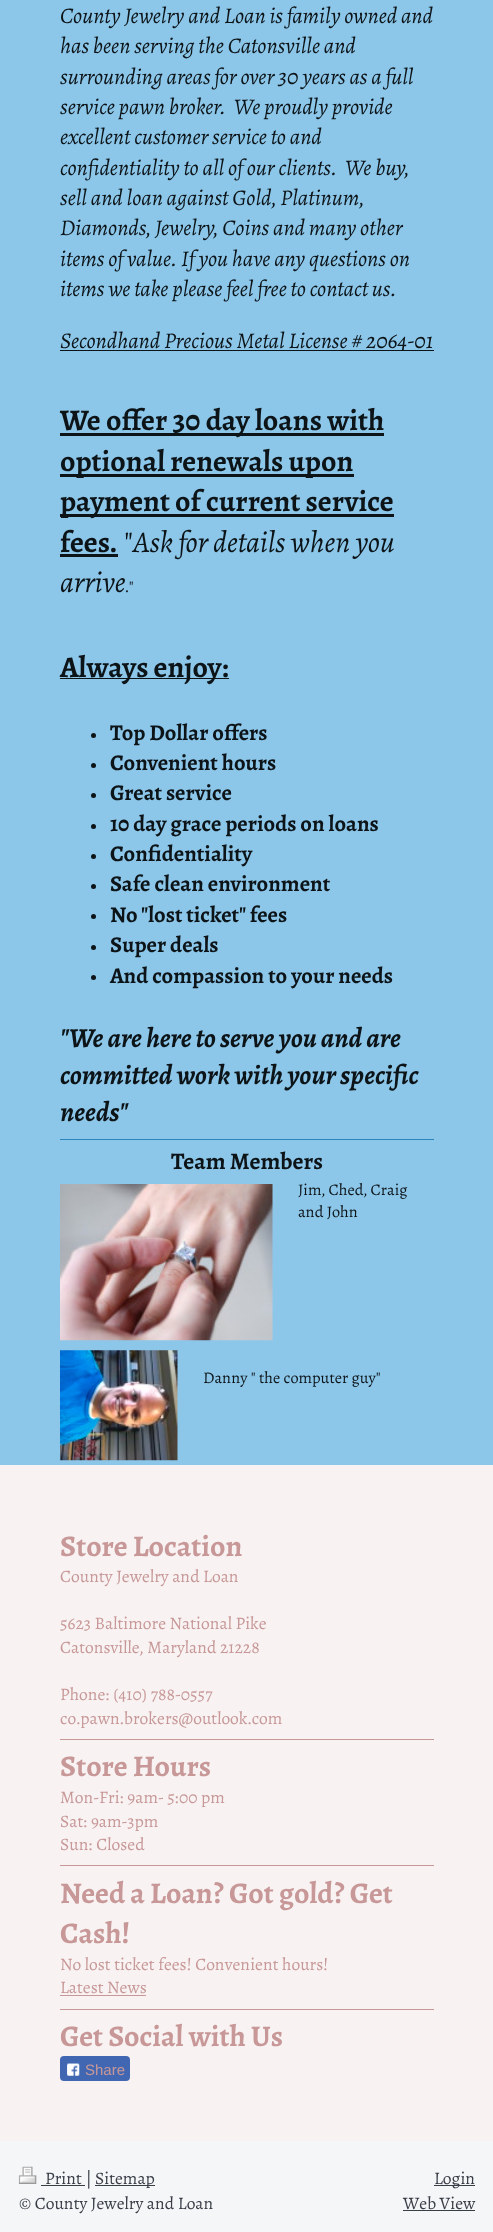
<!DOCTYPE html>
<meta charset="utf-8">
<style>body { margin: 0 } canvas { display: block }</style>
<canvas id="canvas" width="493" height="2232"></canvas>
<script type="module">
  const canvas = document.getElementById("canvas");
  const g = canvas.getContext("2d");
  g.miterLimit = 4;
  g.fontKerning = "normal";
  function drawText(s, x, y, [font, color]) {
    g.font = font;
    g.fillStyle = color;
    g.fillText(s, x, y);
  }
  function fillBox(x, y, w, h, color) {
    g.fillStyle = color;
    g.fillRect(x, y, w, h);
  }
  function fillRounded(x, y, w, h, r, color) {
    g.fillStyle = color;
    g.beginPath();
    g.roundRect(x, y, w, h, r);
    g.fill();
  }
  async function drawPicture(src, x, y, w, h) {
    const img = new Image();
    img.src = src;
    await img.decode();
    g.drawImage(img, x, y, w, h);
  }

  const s1 = ["italic 22.5px Alegreya", "#0D1418"];
  const s2 = ["bold 30px Alegreya", "#0D1418"];
  const s3 = ["30px Alegreya", "#0D1418"];
  const s4 = ["italic 30px Alegreya", "#0D1418"];
  const s5 = ["16.25px Alegreya", "#0D1418"];
  const s6 = ["bold 22.5px Alegreya", "#0D1418"];
  const s7 = ["italic bold 27.5px Alegreya", "#0D1418"];
  const s8 = ["bold 23.75px Alegreya", "#0D1418"];
  const s9 = ["bold 30px Alegreya", "#C89898"];
  const s10 = ["17.5px Alegreya", "#C89898"];
  const s11 = ["15px Liberation Sans", "#C89898"];
  const s12 = ["17.5px Alegreya", "#383D46"];

  fillBox(0, 0, 493, 2232, "#8CC7EA");
  drawText("County Jewelry and Loan is family owned and", 60, 23, s1);
  drawText("has been serving the Catonsville and", 60, 53, s1);
  drawText("surrounding areas for over 30 years as a full", 60, 84, s1);
  drawText("service pawn broker.  We proudly provide", 60, 114, s1);
  drawText("excellent customer service to and", 60, 144, s1);
  drawText("confidentiality to all of our clients.  We buy,", 60, 175, s1);
  drawText("sell and loan against Gold, Platinum,", 60, 205, s1);
  drawText("Diamonds, Jewelry, Coins and many other", 60, 235, s1);
  drawText("items of value. If you have any questions on", 60, 266, s1);
  drawText("items we take please feel free to contact us.", 60, 296, s1);
  fillBox(60, 350, 374, 1, "#0D1418");
  drawText("Secondhand Precious Metal License # 2064-01", 60, 348, s1);
  fillBox(60, 433, 324, 3, "#0D1418");
  drawText("We offer 30 day loans with", 60, 430, s2);
  fillBox(60, 474, 294, 3, "#0D1418");
  drawText("optional renewals upon", 60, 471, s2);
  fillBox(60, 514, 334, 3, "#0D1418");
  drawText("payment of current service", 60, 511, s2);
  drawText("fees.", 60, 552, s2);
  fillBox(60, 554, 58, 3, "#0D1418");
  drawText("\"", 124, 552, s3);
  drawText("Ask for details when you", 133, 552, s4);
  drawText("arrive", 60, 592, s4);
  drawText(".\"", 125, 592, s5);
  fillBox(60, 678, 169, 1, "#0D1418");
  drawText("Always enjoy:", 60, 677, s2);
  g.beginPath();
  g.arc(93.5, 735.5, 2.5, 0, Math.PI * 2);
  g.fill();
  drawText("Top Dollar offers", 110, 740, s6);
  g.beginPath();
  g.arc(93.5, 765.5, 2.5, 0, Math.PI * 2);
  g.fill();
  drawText("Convenient hours", 110, 770, s6);
  g.beginPath();
  g.arc(93.5, 795.5, 2.5, 0, Math.PI * 2);
  g.fill();
  drawText("Great service", 110, 800, s6);
  g.beginPath();
  g.arc(93.5, 826.5, 2.5, 0, Math.PI * 2);
  g.fill();
  drawText("10 day grace periods on loans", 110, 831, s6);
  g.beginPath();
  g.arc(93.5, 856.5, 2.5, 0, Math.PI * 2);
  g.fill();
  drawText("Confidentiality", 110, 861, s6);
  g.beginPath();
  g.arc(93.5, 886.5, 2.5, 0, Math.PI * 2);
  g.fill();
  drawText("Safe clean environment", 110, 891, s6);
  g.beginPath();
  g.arc(93.5, 916.5, 2.5, 0, Math.PI * 2);
  g.fill();
  drawText("No \"lost ticket\" fees", 110, 922, s6);
  g.beginPath();
  g.arc(93.5, 947.5, 2.5, 0, Math.PI * 2);
  g.fill();
  drawText("Super deals", 110, 952, s6);
  g.beginPath();
  g.arc(93.5, 977.5, 2.5, 0, Math.PI * 2);
  g.fill();
  drawText("And compassion to your needs", 110, 983, s6);
  drawText("\"We are here to serve you and are", 60, 1047, s7);
  drawText("committed work with your specific", 60, 1084, s7);
  drawText("needs\"", 60, 1121, s7);
  fillBox(60, 1139, 374, 1, "#2886BD");
  drawText("Team Members", 171, 1169, s8);
  await drawPicture("pic1.png", 60, 1184, 213, 157);
  drawText("Jim, Ched, Craig", 298, 1195, s5);
  drawText("and John", 298, 1217, s5);
  await drawPicture("pic2.png", 60, 1350, 118, 111);
  drawText("Danny \" the computer guy\"", 203, 1383, s5);
  fillBox(0, 1465, 493, 676, "#F8F2F2");
  drawText("Store Location", 60, 1556, s9);
  drawText("County Jewelry and Loan", 60, 1582, s10);
  drawText("5623 Baltimore National Pike", 60, 1629, s10);
  drawText("Catonsville, Maryland 21228", 60, 1653, s10);
  drawText("Phone: (410) 788-0557", 60, 1700, s10);
  drawText("co.pawn.brokers@outlook.com", 60, 1724, s10);
  fillBox(60, 1739, 374, 1, "#C89898");
  drawText("Store Hours", 60, 1776, s9);
  drawText("Mon-Fri: 9am- 5:00 pm", 60, 1803, s10);
  drawText("Sat: 9am-3pm", 60, 1827, s10);
  drawText("Sun: Closed", 60, 1850, s10);
  fillBox(60, 1865, 374, 1, "#C89898");
  drawText("Need a Loan? Got gold? Get", 60, 1903, s9);
  drawText("Cash!", 60, 1943, s9);
  drawText("No lost ticket fees! Convenient hours!", 60, 1970, s10);
  drawText("Latest News", 60, 1993, s10);
  fillBox(60, 1995, 86, 1, "#C89898");
  fillBox(60, 2009, 374, 1, "#C89898");
  drawText("Get Social with Us", 60, 2046, s9);
  fillRounded(60, 2056, 70, 25, 4, "#4267B2");
  await drawPicture("pic3.png", 67, 2063, 13, 13);
  drawText("Share", 85, 2075, s11);
  fillBox(0, 2141, 493, 91, "#F5F6F8");
  await drawPicture("pic4.png", 18, 2166, 19, 18);
  fillBox(41, 2185, 44, 1, "#383D46");
  drawText("Print |", 45, 2184, s12);
  fillBox(95, 2185, 60, 1, "#383D46");
  drawText("Sitemap", 95, 2184, s12);
  drawText("© County Jewelry and Loan", 19, 2209, s12);
  fillBox(434, 2185, 41, 1, "#383D46");
  drawText("Login", 434, 2184, s12);
  drawText("Web View", 403, 2209, s12);
  fillBox(403, 2210, 72, 1, "#383D46");
</script>
